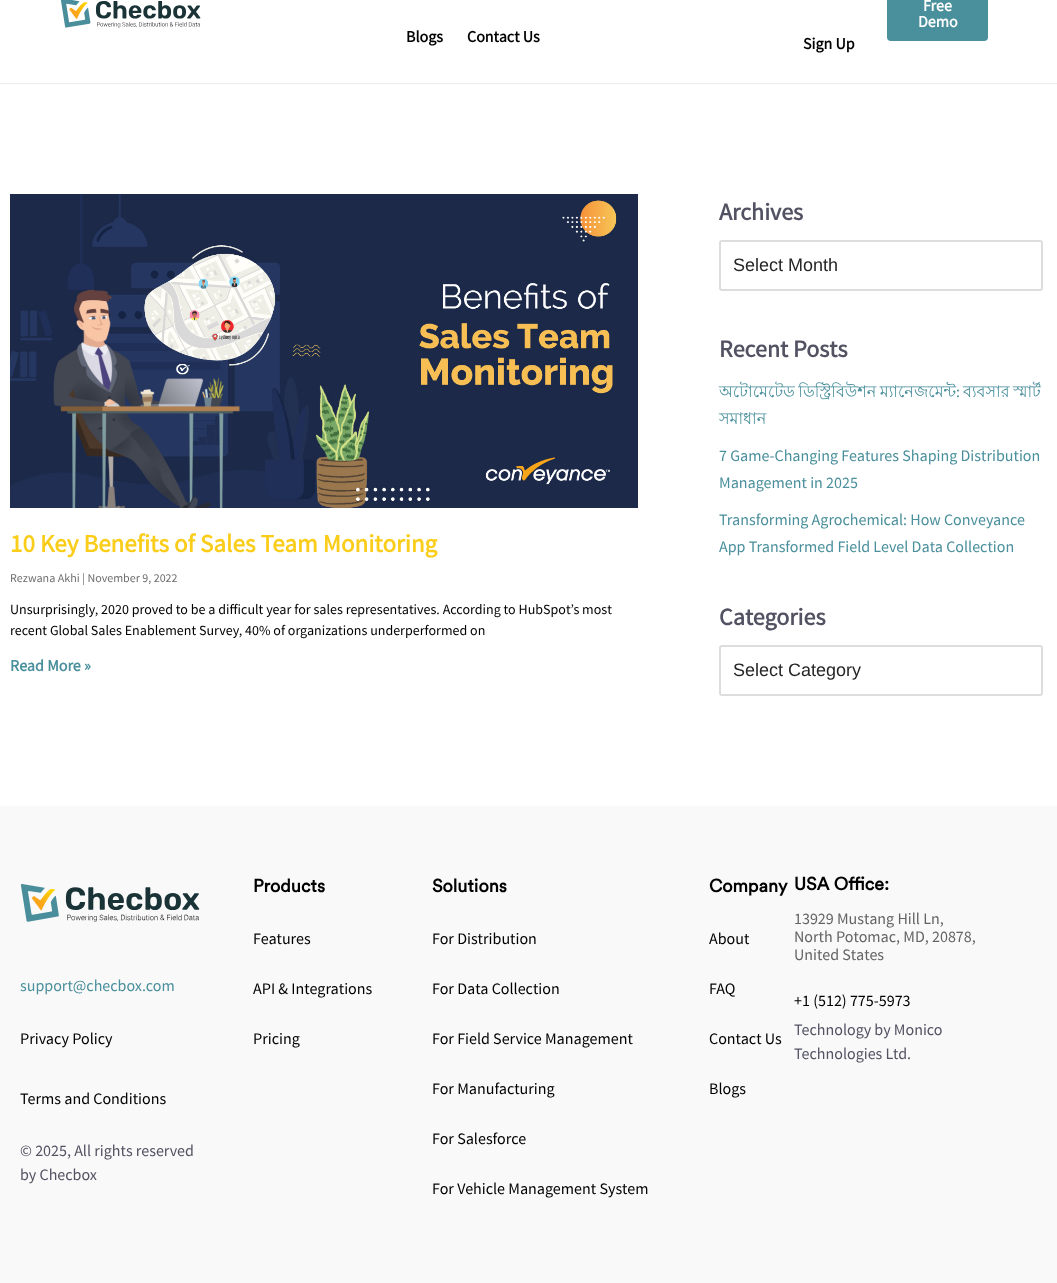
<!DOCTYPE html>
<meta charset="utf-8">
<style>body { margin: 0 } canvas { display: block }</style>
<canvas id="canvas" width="1057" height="1283"></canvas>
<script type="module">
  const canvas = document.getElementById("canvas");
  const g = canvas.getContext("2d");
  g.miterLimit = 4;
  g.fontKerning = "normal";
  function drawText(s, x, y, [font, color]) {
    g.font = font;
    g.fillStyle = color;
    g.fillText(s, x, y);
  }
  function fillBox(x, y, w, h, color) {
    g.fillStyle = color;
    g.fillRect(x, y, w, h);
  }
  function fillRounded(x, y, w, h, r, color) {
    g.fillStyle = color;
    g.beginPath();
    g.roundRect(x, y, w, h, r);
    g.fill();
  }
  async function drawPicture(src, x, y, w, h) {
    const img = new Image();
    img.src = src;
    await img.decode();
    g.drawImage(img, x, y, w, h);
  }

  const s1 = ["bold 16px Source Sans Pro", "#FFFFFF"];
  const s2 = ["bold 16px Source Sans Pro", "#000000"];
  const s3 = ["bold 25px Source Sans Pro", "#FACD1A"];
  const s4 = ["12px Source Sans Pro", "#6F6F6F"];
  const s5 = ["14px Source Sans Pro", "#000000"];
  const s6 = ["bold 16px Source Sans Pro", "#4A8F9C"];
  const s7 = ["bold 24px Source Sans Pro", "#535263"];
  const s8 = ["18px Liberation Sans", "#272626"];
  const s9 = ["16px Lohit Bengali", "#4A8F9C"];
  const s10 = ["16px Source Sans Pro", "#4A8F9C"];
  const s11 = ["16px Source Sans Pro", "#000000"];
  const s12 = ["16px Source Sans Pro", "#535263"];
  const s13 = ["bold 18px Circular", "#000000"];
  const s14 = ["16px Source Sans Pro", "#646464"];

  fillBox(0, 0, 1057, 1283, "#FFFFFF");
  fillBox(0, 83, 1057, 1, "#ECECEC");
  await drawPicture("pic1.png", 60, 0, 141, 28);
  fillRounded(887, -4, 101, 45, 4, "#4A8F9C");
  drawText("Free", 923, 11, s1);
  drawText("Demo", 918, 27, s1);
  drawText("Blogs", 406, 42, s2);
  drawText("Contact Us", 467, 42, s2);
  drawText("Sign Up", 803, 49, s2);
  await drawPicture("pic2.png", 10, 194, 628, 314);
  drawText("10 Key Benefits of Sales Team Monitoring", 10, 552, s3);
  drawText("Rezwana Akhi | November 9, 2022", 10, 582, s4);
  drawText("Unsurprisingly, 2020 proved to be a difficult year for sales representatives. According to HubSpot’s most", 10, 614, s5);
  drawText("recent Global Sales Enablement Survey, 40% of organizations underperformed on", 10, 635, s5);
  drawText("Read More »", 10, 671, s6);
  drawText("Archives", 719, 220, s7);
  g.beginPath();
  g.roundRect(720, 241, 322, 49, 2);
  g.strokeStyle = "#DDDDDD";
  g.lineWidth = 2;
  g.stroke();
  drawText("Select Month", 733, 271, s8);
  drawText("Recent Posts", 719, 357, s7);
  g.wordSpacing = "-1px";
  drawText("অটোমেটেড ডিস্ট্রিবিউশন ম্যানেজমেন্ট", 719, 397, s9);
  g.wordSpacing = "0px";
  drawText(":", 956, 397, s10);
  g.wordSpacing = "-1px";
  drawText("ব্যবসার স্মার্ট", 963, 397, s9);
  g.wordSpacing = "0px";
  drawText("সমাধান", 719, 424, s9);
  drawText("7 Game-Changing Features Shaping Distribution", 719, 461, s10);
  drawText("Management in 2025", 719, 488, s10);
  drawText("Transforming Agrochemical: How Conveyance", 719, 525, s10);
  drawText("App Transformed Field Level Data Collection", 719, 552, s10);
  drawText("Categories", 719, 625, s7);
  g.beginPath();
  g.roundRect(720, 646, 322, 49, 2);
  g.stroke();
  drawText("Select Category", 733, 676, s8);
  fillBox(0, 806, 1057, 477, "#F9F9F9");
  await drawPicture("pic3.png", 20, 884, 180, 38);
  drawText("support@checbox.com", 20, 991, s10);
  drawText("Privacy Policy", 20, 1044, s11);
  drawText("Terms and Conditions", 20, 1104, s11);
  drawText("© 2025, All rights reserved", 20, 1156, s12);
  drawText("by Checbox", 20, 1180, s12);
  drawText("Products", 253, 892, s13);
  drawText("Features", 253, 944, s11);
  drawText("API & Integrations", 253, 994, s11);
  drawText("Pricing", 253, 1044, s11);
  drawText("Solutions", 432, 892, s13);
  drawText("For Distribution", 432, 944, s11);
  drawText("For Data Collection", 432, 994, s11);
  drawText("For Field Service Management", 432, 1044, s11);
  drawText("For Manufacturing", 432, 1094, s11);
  drawText("For Salesforce", 432, 1144, s11);
  drawText("For Vehicle Management System", 432, 1194, s11);
  drawText("Company", 709, 892, s13);
  drawText("About", 709, 944, s11);
  drawText("FAQ", 709, 994, s11);
  drawText("Contact Us", 709, 1044, s11);
  drawText("Blogs", 709, 1094, s11);
  drawText("USA Office:", 794, 890, s13);
  drawText("13929 Mustang Hill Ln,", 794, 924, s14);
  drawText("North Potomac, MD, 20878,", 794, 942, s14);
  drawText("United States", 794, 960, s14);
  drawText("+1 (512) 775-5973", 794, 1006, s11);
  drawText("Technology by Monico", 794, 1035, s12);
  drawText("Technologies Ltd.", 794, 1059, s12);
</script>
